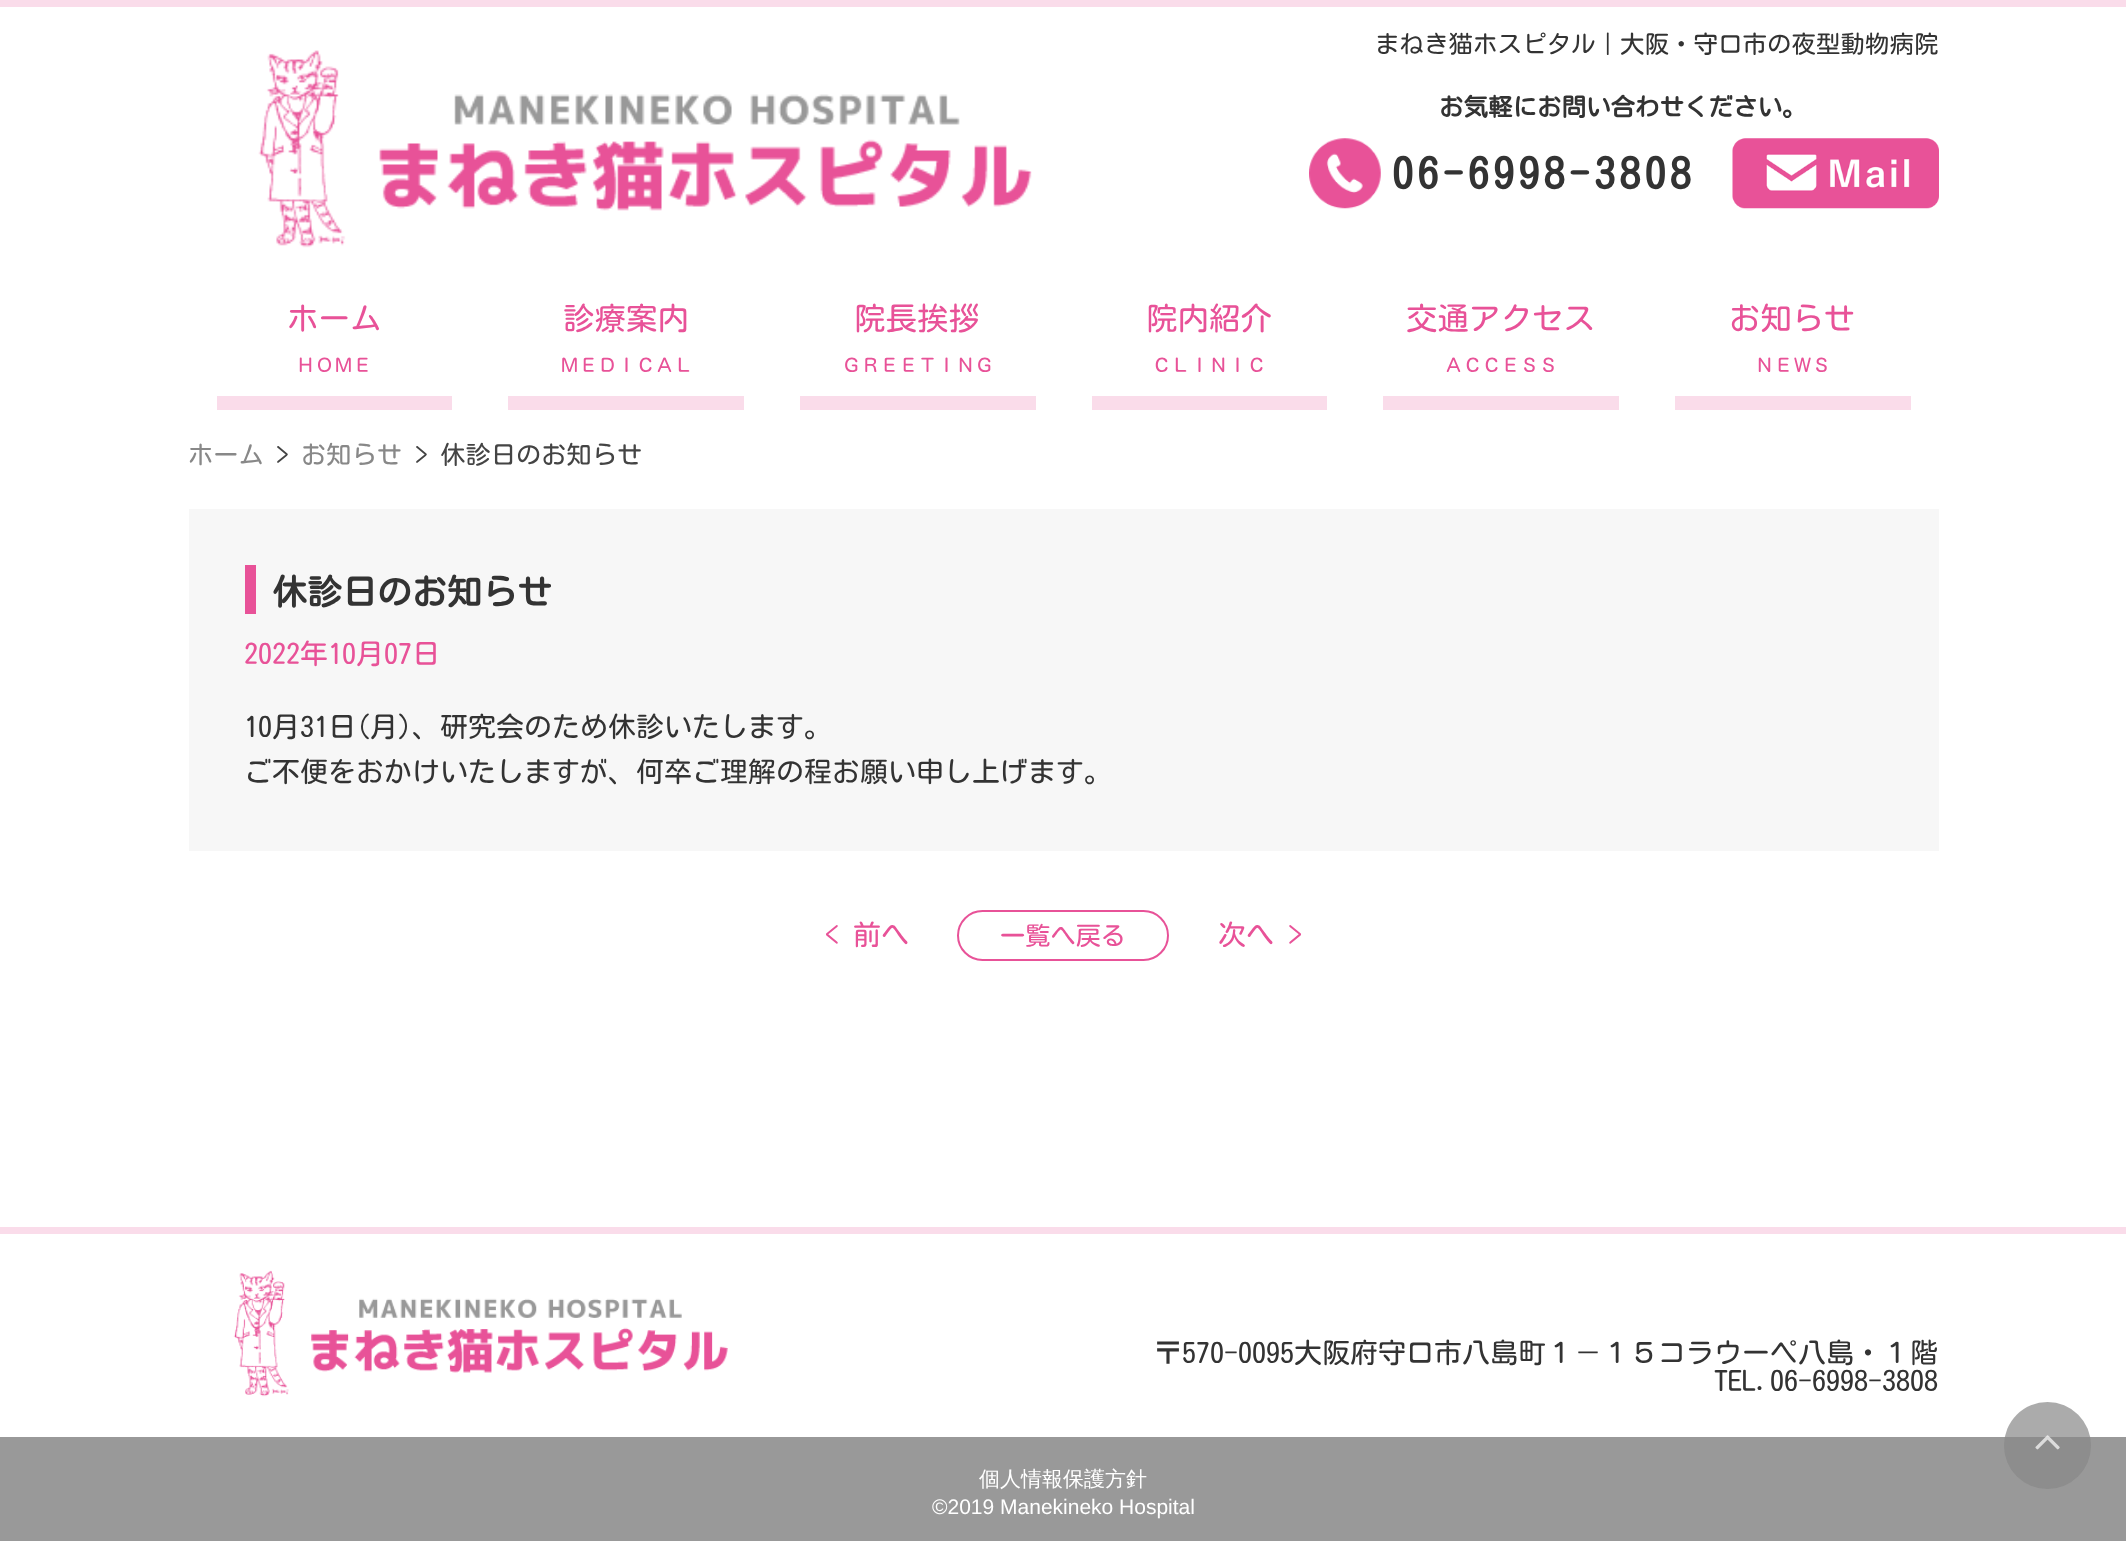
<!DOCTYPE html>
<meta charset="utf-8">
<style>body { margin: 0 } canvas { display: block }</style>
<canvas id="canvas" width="2126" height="1541"></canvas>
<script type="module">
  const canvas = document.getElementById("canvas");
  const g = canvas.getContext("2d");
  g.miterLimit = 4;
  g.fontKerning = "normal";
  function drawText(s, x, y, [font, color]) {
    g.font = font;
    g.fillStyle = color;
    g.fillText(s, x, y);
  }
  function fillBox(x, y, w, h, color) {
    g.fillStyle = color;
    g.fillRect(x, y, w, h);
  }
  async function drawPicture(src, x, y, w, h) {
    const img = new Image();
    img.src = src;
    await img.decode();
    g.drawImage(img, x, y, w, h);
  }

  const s1 = ["24.5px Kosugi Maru", "#333333"];
  const s2 = ["bold 24.5px Kosugi Maru", "#333333"];
  const s3 = ["bold 42px Kosugi Maru", "#333333"];
  const s4 = ["31.5px Kosugi Maru", "#E85298"];
  const s5 = ["19px Kosugi Maru", "#E85298"];
  const s6 = ["25.25px Kosugi Maru", "#888888"];
  const s7 = ["25.25px Kosugi Maru", "#444444"];
  const s8 = ["bold 35px Kosugi Maru", "#333333"];
  const s9 = ["28px Kosugi Maru", "#E85298"];
  const s10 = ["28px Kosugi Maru", "#333333"];
  const s11 = ["25.25px Kosugi Maru", "#E85298"];
  const s12 = ["500 21px WenQuanYi Zen Hei", "#FFFFFF"];
  const s13 = ["21px Liberation Sans", "#FFFFFF"];

  fillBox(0, 0, 2126, 1541, "#FFFFFF");
  fillBox(0, 0, 2126, 7, "#FADCEA");
  drawText("まねき猫ホスピタル｜大阪・守口市の夜型動物病院", 1375, 53, s1);
  await drawPicture("pic1.png", 258, 50, 774, 198);
  drawText("お気軽にお問い合わせください。", 1439, 116, s2);
  await drawPicture("pic2.png", 1309, 138, 72, 71);
  g.letterSpacing = "4.25px";
  drawText("06-6998-3808", 1392, 189, s3);
  await drawPicture("pic3.png", 1732, 138, 207, 71);
  fillBox(217, 396, 235, 14, "#FADCEA");
  g.letterSpacing = "0px";
  drawText("ホーム", 287, 330, s4);
  drawText("ＨＯＭＥ", 296, 372, s5);
  fillBox(508, 396, 236, 14, "#FADCEA");
  drawText("診療案内", 563, 330, s4);
  drawText("ＭＥＤＩＣＡＬ", 560, 372, s5);
  fillBox(800, 396, 236, 14, "#FADCEA");
  drawText("院長挨拶", 854, 330, s4);
  drawText("ＧＲＥＥＴＩＮＧ", 842, 372, s5);
  fillBox(1092, 396, 235, 14, "#FADCEA");
  drawText("院内紹介", 1146, 330, s4);
  drawText("ＣＬＩＮＩＣ", 1152, 372, s5);
  fillBox(1383, 396, 236, 14, "#FADCEA");
  drawText("交通アクセス", 1406, 330, s4);
  drawText("ＡＣＣＥＳＳ", 1444, 372, s5);
  fillBox(1675, 396, 236, 14, "#FADCEA");
  drawText("お知らせ", 1729, 330, s4);
  drawText("ＮＥＷＳ", 1755, 372, s5);
  drawText("ホーム", 188, 464, s6);
  drawText(">", 276, 464, s7);
  drawText("お知らせ", 301, 464, s6);
  drawText("> 休診日のお知らせ", 415, 464, s7);
  fillBox(189, 509, 1750, 342, "#F7F7F7");
  fillBox(245, 565, 11, 49, "#E85298");
  drawText("休診日のお知らせ", 272, 605, s8);
  drawText("2022年10月07日", 244, 664, s9);
  drawText("10月31日(月)、研究会のため休診いたします。", 244, 737, s10);
  drawText("ご不便をおかけいたしますが、何卒ご理解の程お願い申し上げます。", 244, 782, s10);
  drawText("< 前へ", 825, 945, s9);
  g.beginPath();
  g.roundRect(958, 911, 210, 49, 24.5);
  g.strokeStyle = "#E85298";
  g.lineWidth = 2;
  g.stroke();
  drawText("一覧へ戻る", 1000, 945, s11);
  drawText("次へ >", 1218, 945, s9);
  fillBox(0, 1227, 2126, 7, "#FADCEA");
  await drawPicture("pic4.png", 233, 1270, 495, 127);
  drawText("〒570-0095大阪府守口市八島町１－１５コラウーペ八島・１階", 1154, 1363, s10);
  drawText("TEL.06-6998-3808", 1714, 1391, s10);
  fillBox(0, 1437, 2126, 104, "#999999");
  drawText("個人情報保護方針", 979, 1486, s12);
  drawText("©2019 Manekineko Hospital", 932, 1514, s13);
  g.fillStyle = "rgba(136, 136, 136, 0.7)";
  g.beginPath();
  g.arc(2047.5, 1445.5, 43.5, 0, Math.PI * 2);
  g.fill();
  await drawPicture("pic5.png", 2035, 1435, 25, 15);
</script>
